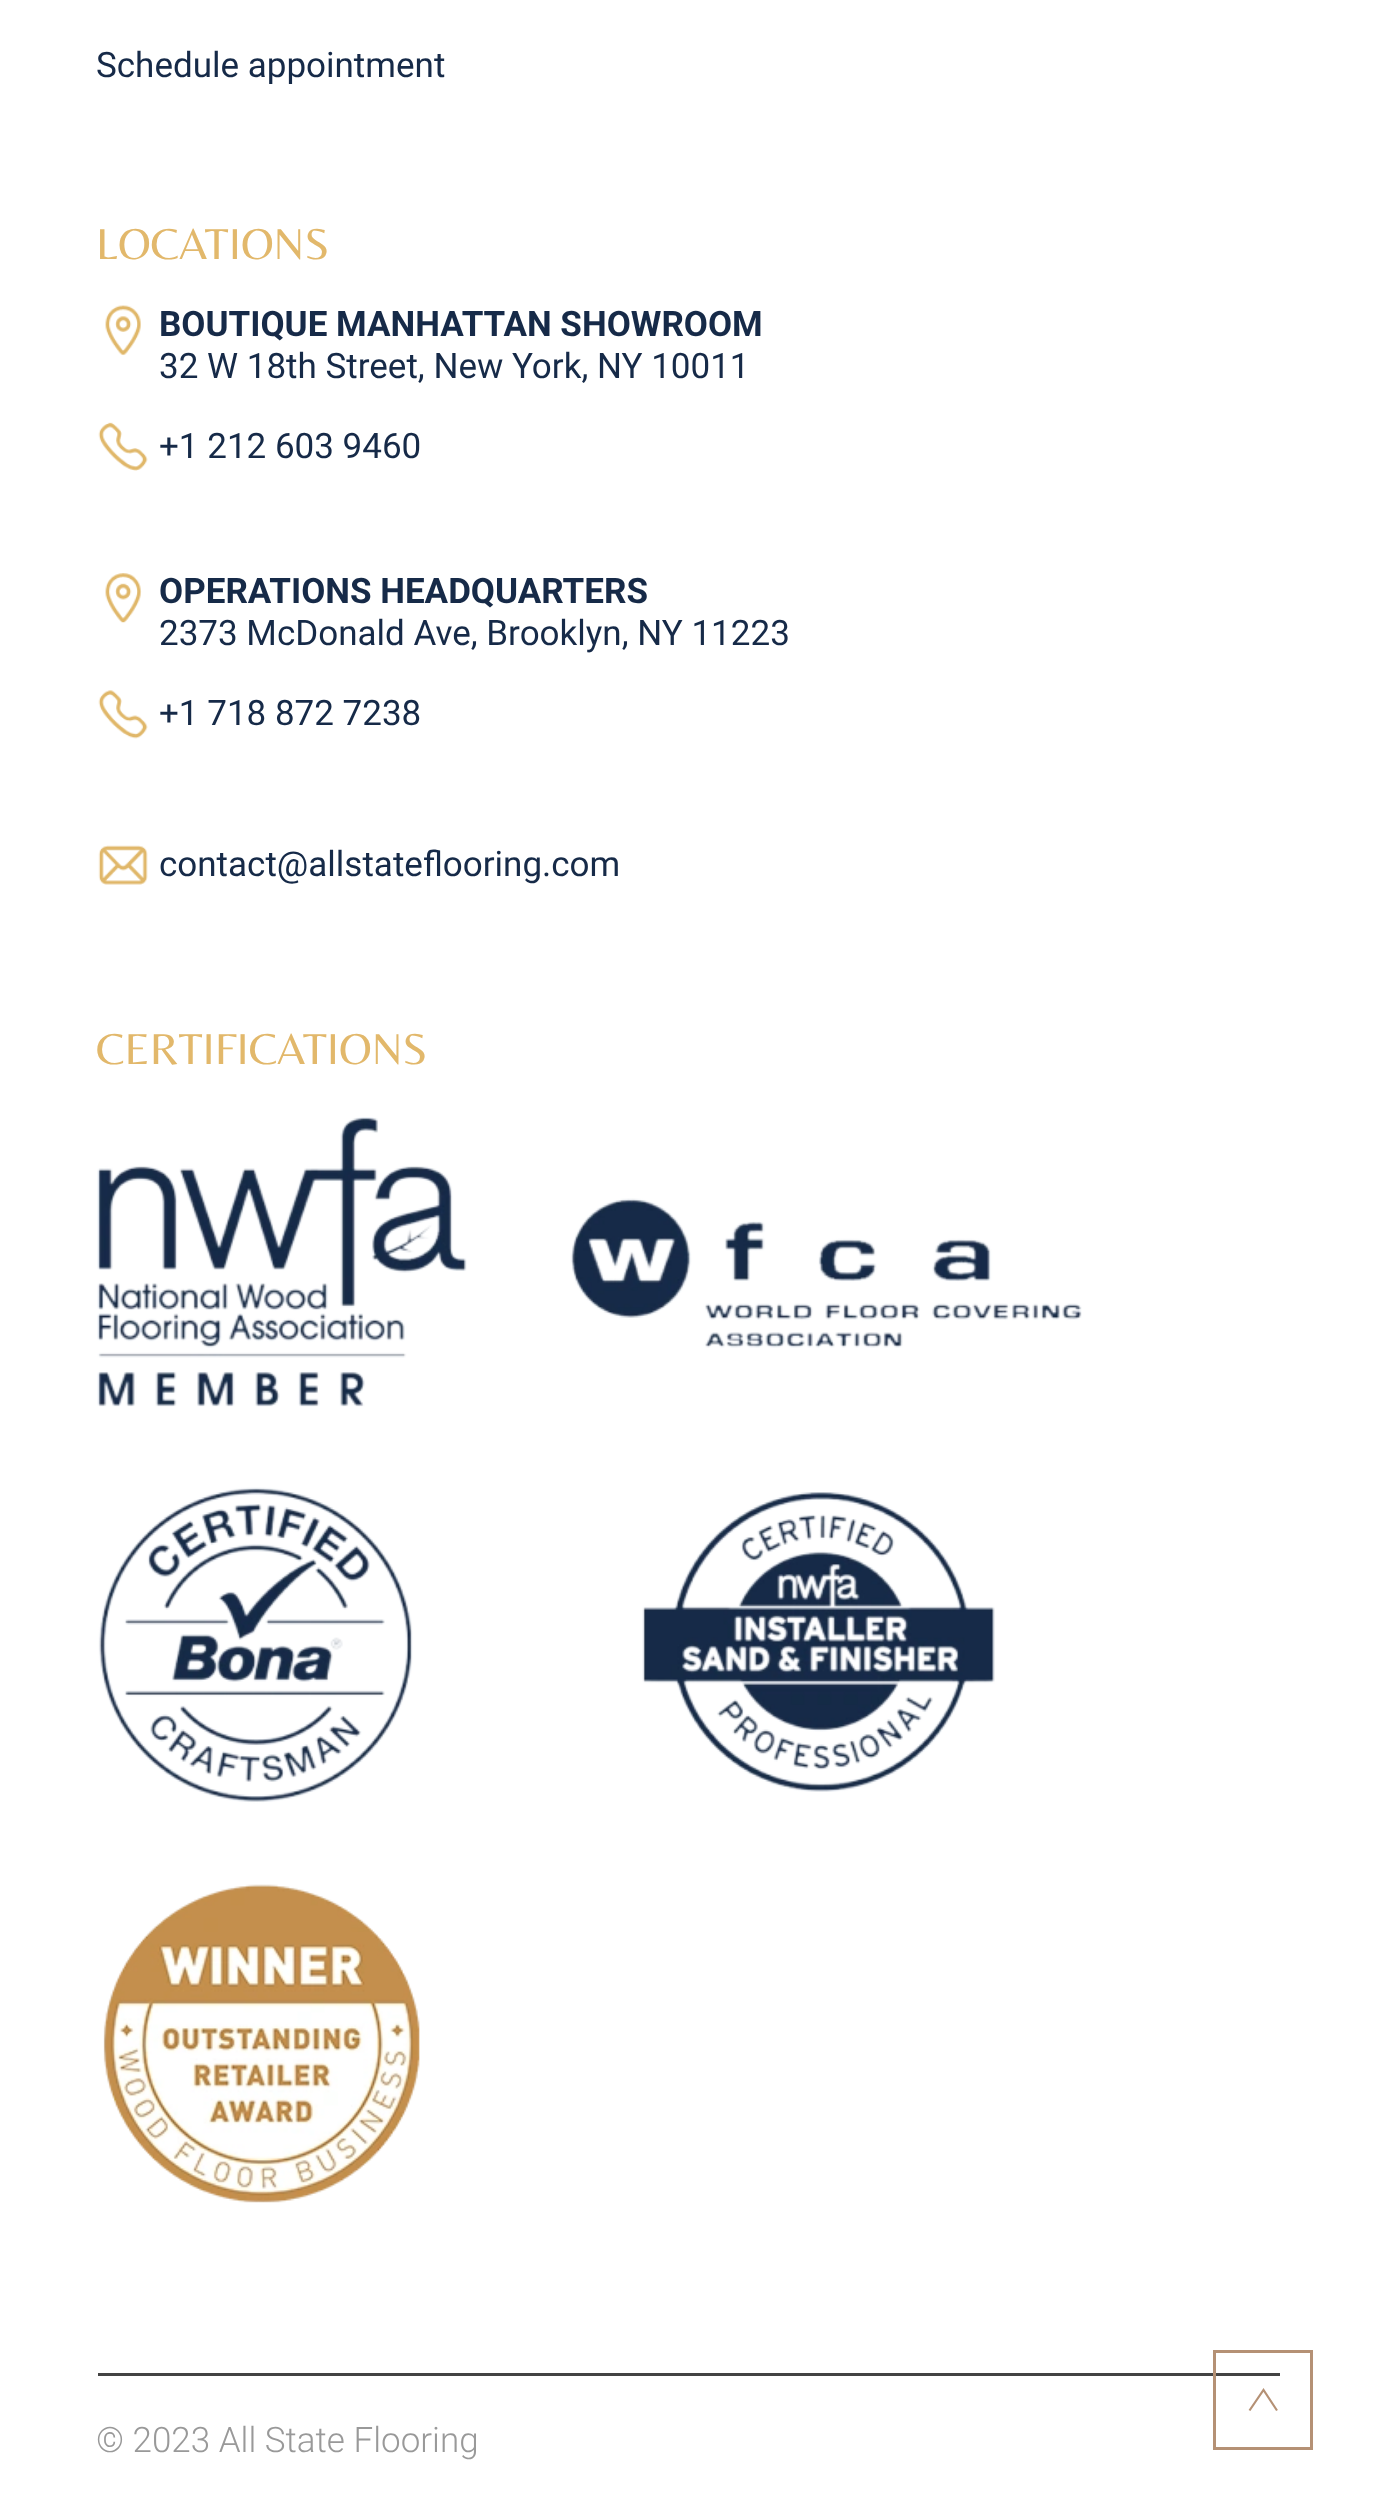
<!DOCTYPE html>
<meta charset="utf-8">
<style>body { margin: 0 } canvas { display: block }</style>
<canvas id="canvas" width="1374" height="2512"></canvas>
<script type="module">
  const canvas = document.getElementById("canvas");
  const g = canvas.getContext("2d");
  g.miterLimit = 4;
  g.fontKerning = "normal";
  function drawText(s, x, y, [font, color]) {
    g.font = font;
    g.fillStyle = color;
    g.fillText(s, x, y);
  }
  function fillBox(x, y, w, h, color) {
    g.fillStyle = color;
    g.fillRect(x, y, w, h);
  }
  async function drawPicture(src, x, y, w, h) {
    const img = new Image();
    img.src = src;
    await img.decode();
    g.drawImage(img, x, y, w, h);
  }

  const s1 = ["35px Roboto", "#162A48"];
  const s2 = ["45px Belleza", "#E2B86B"];
  const s3 = ["bold 35px Roboto", "#162A48"];
  const s4 = ["300 35px Roboto", "#999999"];

  fillBox(0, 0, 1374, 2512, "#FFFFFF");
  drawText("Schedule appointment", 96, 77, s1);
  drawText("LOCATIONS", 96, 259, s2);
  await drawPicture("pic1.png", 105, 305, 36, 51);
  drawText("BOUTIQUE MANHATTAN SHOWROOM", 159, 336, s3);
  drawText("32 W 18th Street, New York, NY 10011", 159, 378, s1);
  await drawPicture("pic2.png", 98, 422, 50, 49);
  drawText("+1 212 603 9460", 159, 458, s1);
  await drawPicture("pic3.png", 105, 573, 37, 50);
  drawText("OPERATIONS HEADQUARTERS", 159, 603, s3);
  drawText("2373 McDonald Ave, Brooklyn, NY 11223", 159, 645, s1);
  await drawPicture("pic4.png", 98, 690, 50, 49);
  drawText("+1 718 872 7238", 159, 725, s1);
  await drawPicture("pic5.png", 98, 845, 50, 40);
  drawText("contact@allstateflooring.com", 159, 876, s1);
  drawText("CERTIFICATIONS", 96, 1064, s2);
  await drawPicture("pic6.png", 97, 1117, 985, 1086);
  fillBox(98, 2373, 1182, 3, "#434343");
  drawText("© 2023 All State Flooring", 96, 2452, s4);
  g.strokeStyle = "#B59175";
  g.lineWidth = 3;
  g.strokeRect(1214.5, 2351.5, 97, 97);
  g.beginPath();
  g.moveTo(1277, 2410.5);
  g.lineTo(1263.5, 2390);
  g.lineTo(1249.5, 2410.5);
  g.lineWidth = 2.2;
  g.stroke();
</script>
